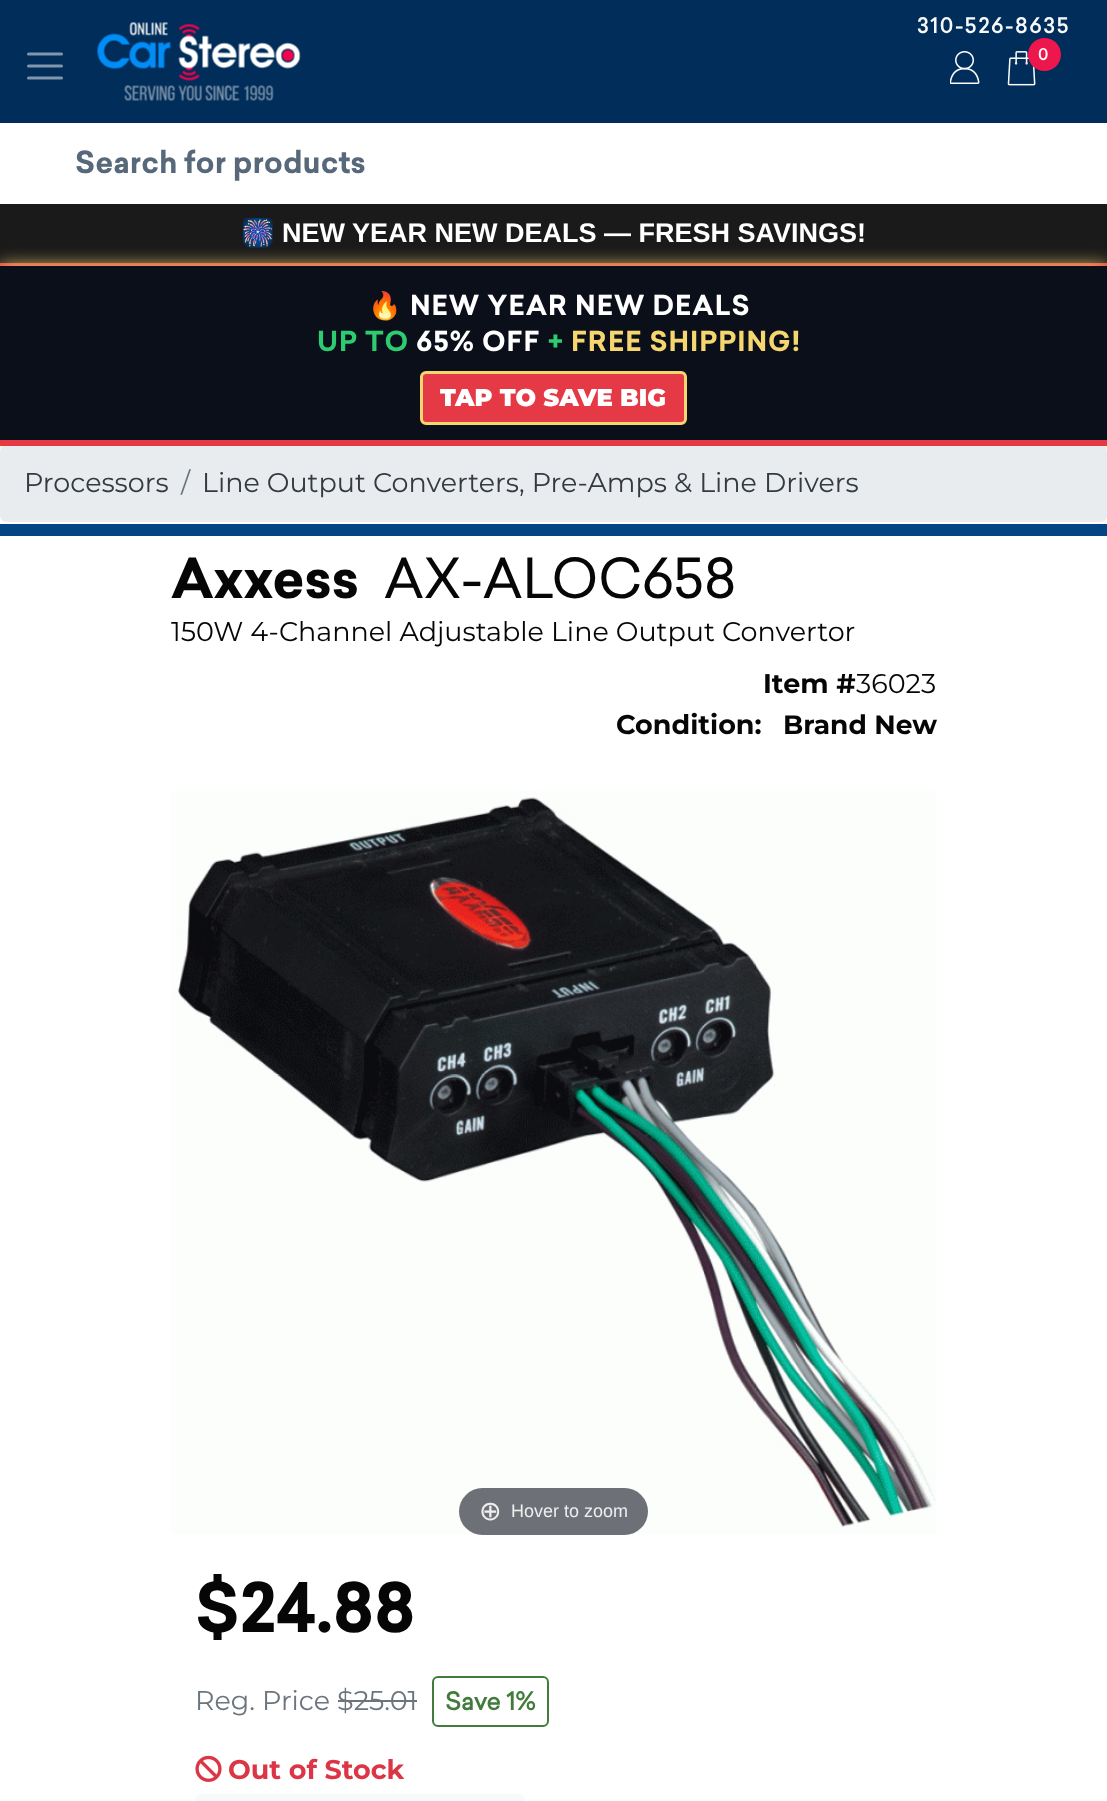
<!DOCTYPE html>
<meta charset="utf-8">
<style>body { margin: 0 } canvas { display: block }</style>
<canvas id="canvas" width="1107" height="1801"></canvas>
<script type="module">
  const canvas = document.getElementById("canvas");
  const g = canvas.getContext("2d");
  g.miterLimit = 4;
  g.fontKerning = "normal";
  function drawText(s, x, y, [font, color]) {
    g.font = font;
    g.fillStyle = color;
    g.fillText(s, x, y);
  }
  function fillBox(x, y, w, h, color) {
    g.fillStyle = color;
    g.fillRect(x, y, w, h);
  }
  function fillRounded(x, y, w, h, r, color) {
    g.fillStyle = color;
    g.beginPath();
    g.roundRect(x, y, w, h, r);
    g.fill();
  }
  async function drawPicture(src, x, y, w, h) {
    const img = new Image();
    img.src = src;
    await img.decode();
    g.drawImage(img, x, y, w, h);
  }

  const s1 = ["500 21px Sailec", "#F8F9FA"];
  const s2 = ["500 16px Sailec", "#FFFFFF"];
  const s3 = ["bold 30px Sailec", "#566879"];
  const s4 = ["bold 27px Noto Color Emoji", "#FFFFFF"];
  const s5 = ["bold 27px Liberation Sans", "#FFFFFF"];
  const s6 = ["bold 27px Sailec", "#FFFFFF"];
  const s7 = ["bold 27px Sailec", "#2ECC71"];
  const s8 = ["bold 27px Sailec", "#F6D66E"];
  const s9 = ["900 24.25px Montserrat", "#FFFFFF"];
  const s10 = ["27px Montserrat", "#343A40"];
  const s11 = ["27px Montserrat", "#6C757D"];
  const s12 = ["bold 54px Sailec", "#060606"];
  const s13 = ["54px Sailec", "#060606"];
  const s14 = ["27px Montserrat", "#060606"];
  const s15 = ["bold 27px Montserrat", "#060606"];
  const s16 = ["bold 26.5px Montserrat", "#060606"];
  const s17 = ["27px DejaVu Sans", "#EEEEEE"];
  const s18 = ["18px Liberation Sans", "#EEEEEE"];
  const s19 = ["bold 67px Sailec", "#060606"];
  const s20 = ["bold 24px 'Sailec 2'", "#427C3C"];
  const s21 = ["bold 27px Montserrat", "#DC3545"];

  fillBox(0, 0, 1107, 1801, "#FFFFFF");
  fillBox(0, 0, 1107, 123, "#002D59");
  await drawPicture("pic1.png", 97, 22, 204, 79);
  g.letterSpacing = "1.5px";
  drawText("310-526-8635", 917, 33, s1);
  await drawPicture("pic2.png", 950, 51, 30, 33);
  await drawPicture("pic3.png", 1007, 51, 29, 35);
  g.fillStyle = "#ED174E";
  g.beginPath();
  g.arc(1044.5, 54.5, 16.5, 0, Math.PI * 2);
  g.fill();
  drawText("0", 1038, 60, s2);
  g.beginPath();
  g.moveTo(28.5, 54);
  g.lineTo(61.5, 54);
  g.moveTo(28.5, 66);
  g.lineTo(61.5, 66);
  g.moveTo(28.5, 78);
  g.lineTo(61.5, 78);
  g.strokeStyle = "#8096AC";
  g.lineWidth = 3;
  g.lineCap = "round";
  g.stroke();
  g.letterSpacing = "0px";
  drawText("Search for products", 75, 173, s3);
  fillBox(0, 204, 1107, 59, "#1A1A1A");
  fillBox(0, 263, 1107, 3, "#E63946");
  drawText("🎆", 241, 242, s4);
  drawText("NEW YEAR NEW DEALS — FRESH SAVINGS!", 282, 242, s5);
  g.fillStyle = "#F6D66E";
  g.filter = "blur(9px)";
  g.beginPath();
  g.rect(0, 266, 1107, 180);
  g.fill();
  g.filter = "none";
  fillBox(0, 266, 1107, 174, "#0B0F1A");
  fillBox(0, 440, 1107, 6, "#E63946");
  g.letterSpacing = "1px";
  drawText("🔥", 368, 315, s4);
  drawText("NEW YEAR NEW DEALS", 410, 315, s6);
  drawText("UP TO", 317, 351, s7);
  drawText("65% OFF", 416, 351, s6);
  drawText("+", 548, 351, s7);
  drawText("FREE SHIPPING!", 571, 351, s8);
  g.fillStyle = "#E63946";
  g.beginPath();
  g.roundRect(421.5, 372.5, 264, 51, 4.5);
  g.fill();
  g.strokeStyle = "#F6D66E";
  g.stroke();
  g.letterSpacing = "0px";
  drawText("TAP TO SAVE BIG", 440, 406, s9);
  fillRounded(0, 446, 1107, 76, 6, "#E9ECEF");
  drawText("Processors", 24, 492, s10);
  drawText("/", 181, 492, s11);
  drawText("Line Output Converters, Pre-Amps & Line Drivers", 202, 492, s10);
  fillBox(0, 524, 1107, 12, "#034484");
  drawText("Axxess", 171, 598, s12);
  drawText("AX-ALOC658", 384, 598, s13);
  drawText("150W 4-Channel Adjustable Line Output Convertor", 171, 641, s14);
  drawText("Item #", 763, 693, s15);
  drawText("36023", 856, 693, s14);
  drawText("Condition:", 616, 734, s15);
  drawText("Brand New", 783, 734, s16);
  await drawPicture("pic4.png", 171, 791, 765, 743);
  fillRounded(459, 1488, 189, 47, 23.5, "rgba(49, 51, 61, 0.7)");
  drawText("⊕", 479, 1520, s17);
  drawText("Hover to zoom", 511, 1517, s18);
  drawText("$24.88", 195, 1632, s19);
  drawText("Reg. Price $25.01", 195, 1710, s11);
  g.beginPath();
  g.roundRect(433, 1677, 115, 49, 5);
  g.strokeStyle = "#427C3C";
  g.lineWidth = 2;
  g.stroke();
  drawText("Save 1%", 445, 1710, s20);
  fillBox(338, 1700, 79, 2, "#6C757D");
  await drawPicture("pic5.png", 195, 1755, 27, 27);
  drawText("Out of Stock", 228, 1779, s21);
  fillRounded(195, 1794, 330, 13, 6, "#F8F9FA");
</script>
